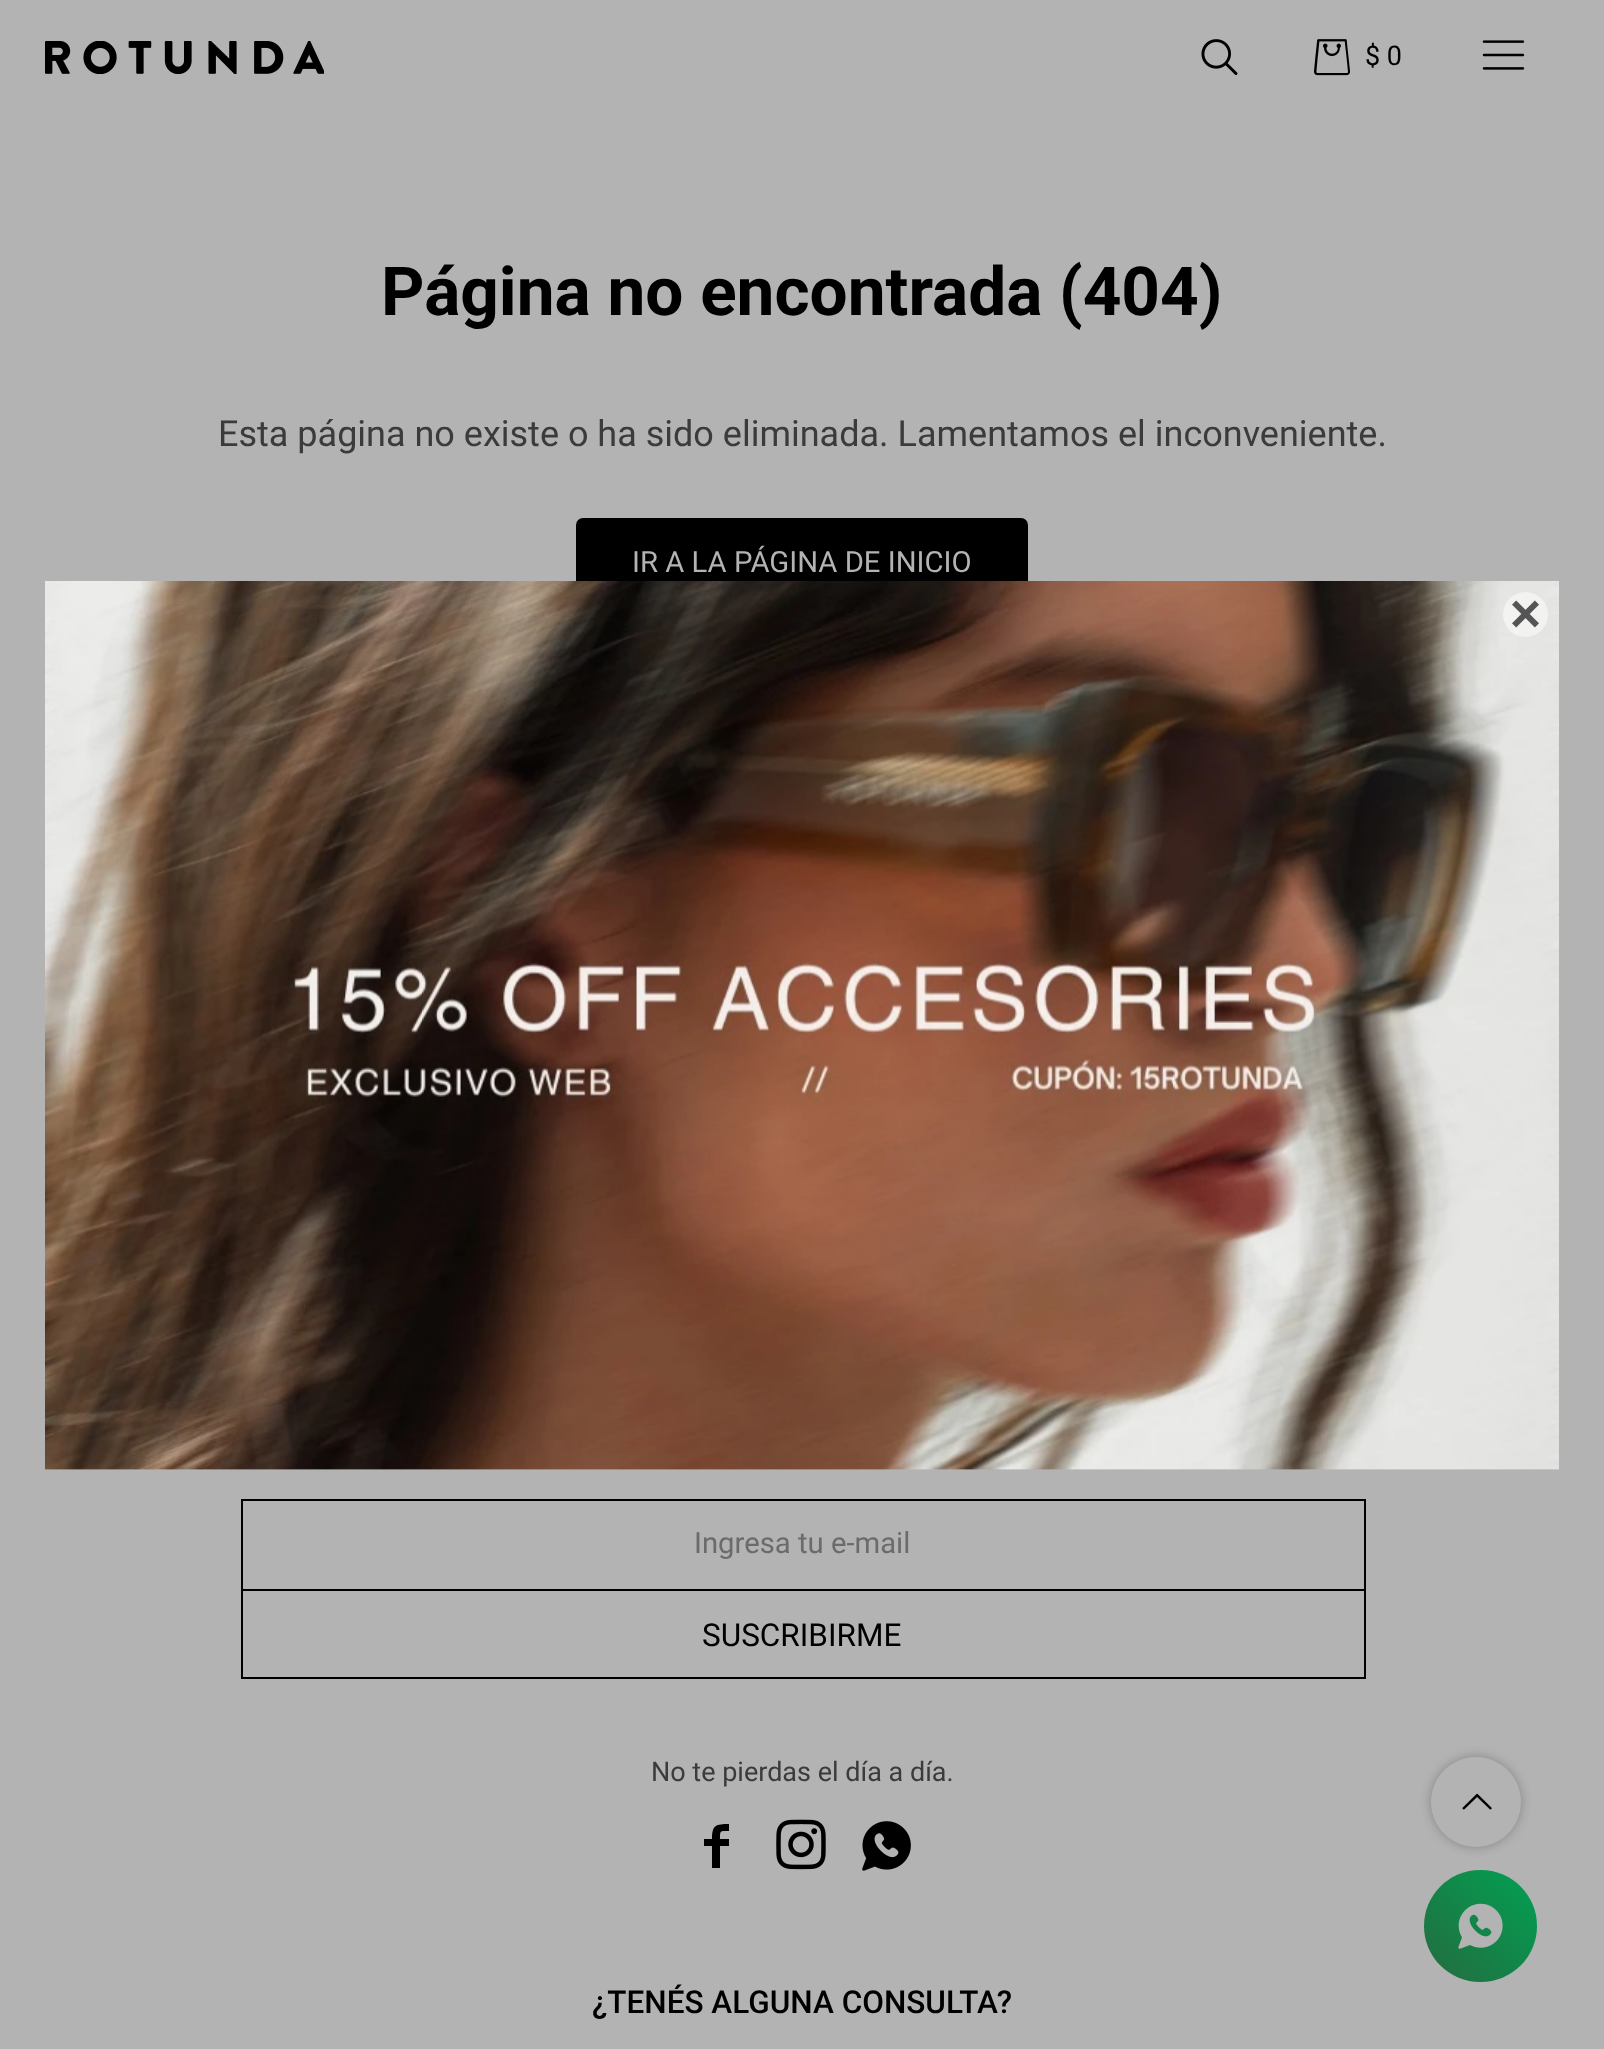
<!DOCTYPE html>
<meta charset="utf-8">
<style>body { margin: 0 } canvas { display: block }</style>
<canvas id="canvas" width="1604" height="2049"></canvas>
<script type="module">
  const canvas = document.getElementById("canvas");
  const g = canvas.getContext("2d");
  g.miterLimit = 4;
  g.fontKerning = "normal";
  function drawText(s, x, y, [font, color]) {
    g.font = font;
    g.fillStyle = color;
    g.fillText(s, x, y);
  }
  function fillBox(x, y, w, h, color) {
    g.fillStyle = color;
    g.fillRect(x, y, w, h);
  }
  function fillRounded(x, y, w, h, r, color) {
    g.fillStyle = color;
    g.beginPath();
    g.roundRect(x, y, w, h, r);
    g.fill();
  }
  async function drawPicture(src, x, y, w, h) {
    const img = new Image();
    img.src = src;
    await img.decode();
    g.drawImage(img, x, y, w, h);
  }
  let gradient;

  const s1 = ["27px Roboto", "#000000"];
  const s2 = ["bold 67.5px Roboto", "#000000"];
  const s3 = ["36px Roboto", "#3B3B3B"];
  const s4 = ["29.25px Roboto", "#B3B3B3"];
  const s5 = ["29.25px Roboto", "#6B6B6B"];
  const s6 = ["31.5px Roboto", "#000000"];
  const s7 = ["27px Roboto", "#3B3B3B"];
  const s8 = ["500 31.5px Roboto", "#000000"];

  fillBox(0, 0, 1604, 2049, "#B3B3B3");
  await drawPicture("pic1.png", 45, 41, 279, 33);
  await drawPicture("pic2.png", 1201, 39, 37, 36);
  await drawPicture("pic3.png", 1314, 39, 36, 37);
  drawText("$ 0", 1365, 65, s1);
  await drawPicture("pic4.png", 1482, 40, 43, 30);
  drawText("Página no encontrada (404)", 381, 315, s2);
  drawText("Esta página no existe o ha sido eliminada. Lamentamos el inconveniente.", 218, 446, s3);
  fillRounded(576, 518, 452, 90, 7, "#000000");
  drawText("IR A LA PÁGINA DE INICIO", 632, 572, s4);
  fillBox(241, 1499, 1125, 2, "#000000");
  fillBox(1364, 1499, 2, 90, "#000000");
  fillBox(241, 1499, 2, 90, "#000000");
  drawText("Ingresa tu e-mail", 694, 1553, s5);
  g.strokeStyle = "#000000";
  g.lineWidth = 2;
  g.strokeRect(242, 1590, 1123, 88);
  drawText("SUSCRIBIRME", 702, 1646, s6);
  drawText("No te pierdas el día a día.", 651, 1781, s7);
  g.fillStyle = "#000000";
  g.beginPath();
  g.moveTo(729, 1831);
  g.bezierCurveTo(720, 1831, 720, 1830, 720, 1839);
  g.lineTo(729, 1839);
  g.lineTo(729, 1846);
  g.lineTo(720, 1846);
  g.lineTo(720, 1868);
  g.lineTo(712, 1868);
  g.lineTo(712, 1846);
  g.lineTo(704, 1846);
  g.lineTo(704, 1839);
  g.lineTo(712, 1839);
  g.bezierCurveTo(712, 1825, 716, 1824, 729, 1824);
  g.closePath();
  g.fill();
  await drawPicture("pic5.png", 776, 1819, 50, 51);
  await drawPicture("pic6.png", 862, 1821, 49, 50);
  drawText("¿TENÉS ALGUNA CONSULTA?", 592, 2013, s8);
  await drawPicture("pic7.png", 45, 581, 1514, 889);
  g.fillStyle = "rgba(255, 255, 255, 0.5)";
  g.beginPath();
  g.arc(1525.5, 614.5, 22.5, 0, Math.PI * 2);
  g.fill();
  await drawPicture("pic8.png", 1512, 600, 27, 28);
  g.fillStyle = "rgba(0, 0, 0, 0.25)";
  g.filter = "blur(5.5px)";
  g.beginPath();
  g.roundRect(1431, 1757, 90, 90, 45);
  g.fill();
  g.filter = "none";
  g.fillStyle = "#B3B3B3";
  g.beginPath();
  g.arc(1476, 1802, 45, 0, Math.PI * 2);
  g.fill();
  await drawPicture("pic9.png", 1462, 1793, 30, 17);
  gradient = g.createLinearGradient(1424, 1982, 1537, 1870);
  gradient.addColorStop(0, "#246B3F");
  gradient.addColorStop(1, "#01A152");
  g.fillStyle = gradient;
  g.beginPath();
  g.roundRect(1424, 1870, 113, 112, 56);
  g.fill();
  await drawPicture("pic10.png", 1458, 1903, 45, 46);
</script>
